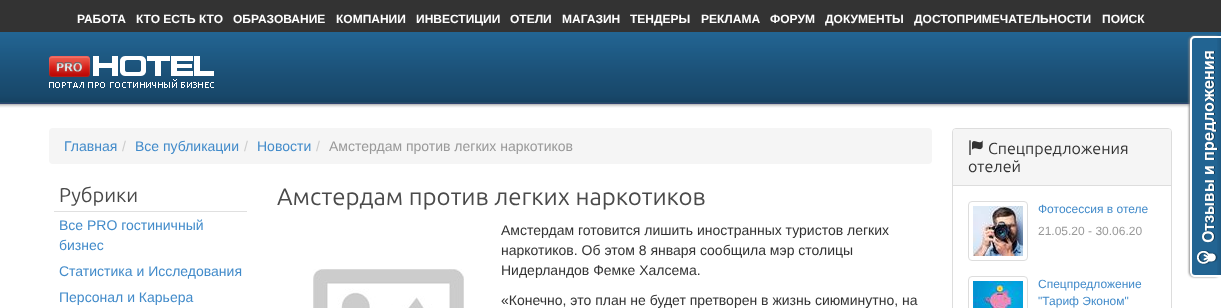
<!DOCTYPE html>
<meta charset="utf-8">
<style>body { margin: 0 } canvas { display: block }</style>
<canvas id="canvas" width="1221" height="308"></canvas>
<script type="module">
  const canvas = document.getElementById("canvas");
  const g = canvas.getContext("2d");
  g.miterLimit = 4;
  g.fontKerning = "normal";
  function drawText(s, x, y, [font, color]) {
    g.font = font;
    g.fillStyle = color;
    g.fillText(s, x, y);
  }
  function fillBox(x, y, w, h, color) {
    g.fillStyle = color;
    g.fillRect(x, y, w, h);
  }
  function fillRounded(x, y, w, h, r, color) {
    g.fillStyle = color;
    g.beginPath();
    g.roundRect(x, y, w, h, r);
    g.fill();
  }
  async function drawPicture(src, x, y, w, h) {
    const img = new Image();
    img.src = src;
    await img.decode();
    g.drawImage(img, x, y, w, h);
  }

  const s1 = ["bold 12px Liberation Sans", "#FFFFFF"];
  const s2 = ["14px Liberation Sans", "#428BCA"];
  const s3 = ["14px Liberation Sans", "#CCCCCC"];
  const s4 = ["14px Liberation Sans", "#999999"];
  const s5 = ["20px Ubuntu", "#4A4A4A"];
  const s6 = ["24px Ubuntu", "#4A4A4A"];
  const s7 = ["14px Liberation Sans", "#333333"];
  const s8 = ["16px Ubuntu", "#333333"];
  const s9 = ["12px Liberation Sans", "#428BCA"];
  const s10 = ["12px Liberation Sans", "#999999"];

  fillBox(0, 0, 1221, 308, "#FFFFFF");
  await drawPicture("pic1.png", 0, 0, 1221, 108);
  drawText("РАБОТА", 77, 23, s1);
  drawText("КТО ЕСТЬ КТО", 136, 23, s1);
  drawText("ОБРАЗОВАНИЕ", 233, 23, s1);
  drawText("КОМПАНИИ", 336, 23, s1);
  drawText("ИНВЕСТИЦИИ", 416, 23, s1);
  drawText("ОТЕЛИ", 510, 23, s1);
  drawText("МАГАЗИН", 562, 23, s1);
  drawText("ТЕНДЕРЫ", 630, 23, s1);
  drawText("РЕКЛАМА", 701, 23, s1);
  drawText("ФОРУМ", 770, 23, s1);
  drawText("ДОКУМЕНТЫ", 825, 23, s1);
  drawText("ДОСТОПРИМЕЧАТЕЛЬНОСТИ", 914, 23, s1);
  drawText("ПОИСК", 1102, 23, s1);
  await drawPicture("pic2.png", 49, 56, 165, 32);
  fillRounded(49, 128, 883, 36, 4, "#F5F5F5");
  drawText("Главная", 64, 151, s2);
  drawText("/", 122, 151, s3);
  drawText("Все публикации", 135, 151, s2);
  drawText("/", 244, 151, s3);
  drawText("Новости", 257, 151, s2);
  drawText("/", 316, 151, s3);
  drawText("Амстердам против легких наркотиков", 329, 151, s4);
  fillBox(54, 211, 193, 1, "#E0E0E0");
  drawText("Рубрики", 59, 202, s5);
  drawText("Все PRO гостиничный", 59, 230, s2);
  drawText("бизнес", 59, 250, s2);
  drawText("Статистика и Исследования", 59, 276, s2);
  drawText("Персонал и Карьера", 59, 302, s2);
  drawText("Амстердам против легких наркотиков", 277, 205, s6);
  await drawPicture("pic3.png", 313, 269, 151, 39);
  drawText("Амстердам готовится лишить иностранных туристов легких", 501, 235, s7);
  drawText("наркотиков. Об этом 8 января сообщила мэр столицы", 501, 255, s7);
  drawText("Нидерландов Фемке Халсема.", 501, 275, s7);
  drawText("«Конечно, это план не будет претворен в жизнь сиюминутно, на", 501, 305, s7);
  g.beginPath();
  g.roundRect(952.5, 128.5, 219, 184, 3.5);
  g.strokeStyle = "#DDDDDD";
  g.stroke();
  g.fillStyle = "#F5F5F5";
  g.beginPath();
  g.roundRect(953, 129, 218, 57, [3, 3, 0, 0]);
  g.fill();
  fillBox(953, 185, 218, 1, "#DDDDDD");
  await drawPicture("pic4.png", 969, 140, 14, 15);
  drawText("Спецпредложения", 988, 154, s8);
  drawText("отелей", 968, 172, s8);
  g.beginPath();
  g.roundRect(968.5, 201.5, 59, 59, 3.5);
  g.stroke();
  await drawPicture("pic5.png", 973, 206, 50, 50);
  drawText("Фотосессия в отеле", 1038, 213, s9);
  drawText("21.05.20 - 30.06.20", 1038, 235, s10);
  g.beginPath();
  g.roundRect(968.5, 276.5, 59, 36, 3.5);
  g.stroke();
  await drawPicture("pic6.png", 973, 281, 50, 27);
  drawText("Спецпредложение", 1038, 288, s9);
  drawText("\"Тариф Эконом\"", 1038, 305, s9);
  g.fillStyle = "#888888";
  g.filter = "blur(1px)";
  g.beginPath();
  g.roundRect(1189, 36, 31, 241, 5);
  g.fill();
  g.filter = "none";
  g.fillStyle = "#226492";
  g.beginPath();
  g.roundRect(1190, 36, 31, 241, [5, 0, 0, 5]);
  g.fill();
  await drawPicture("pic7.png", 1217, 38, 4, 237);
  g.fillStyle = "#FFFFFF";
  g.beginPath();
  g.moveTo(1195, 36);
  g.lineTo(1221, 36);
  g.lineTo(1221, 277);
  g.lineTo(1195, 277);
  g.bezierCurveTo(1192, 277, 1190, 275, 1190, 272);
  g.lineTo(1190, 41);
  g.bezierCurveTo(1190, 38, 1192, 36, 1195, 36);
  g.closePath();
  g.moveTo(1195, 38);
  g.lineTo(1221, 38);
  g.lineTo(1221, 275);
  g.lineTo(1195, 275);
  g.bezierCurveTo(1193, 275, 1192, 274, 1192, 272);
  g.lineTo(1192, 41);
  g.bezierCurveTo(1192, 39, 1193, 38, 1195, 38);
  g.closePath();
  g.fill("evenodd");
  await drawPicture("pic8.png", 1197, 51, 21, 214);
</script>
